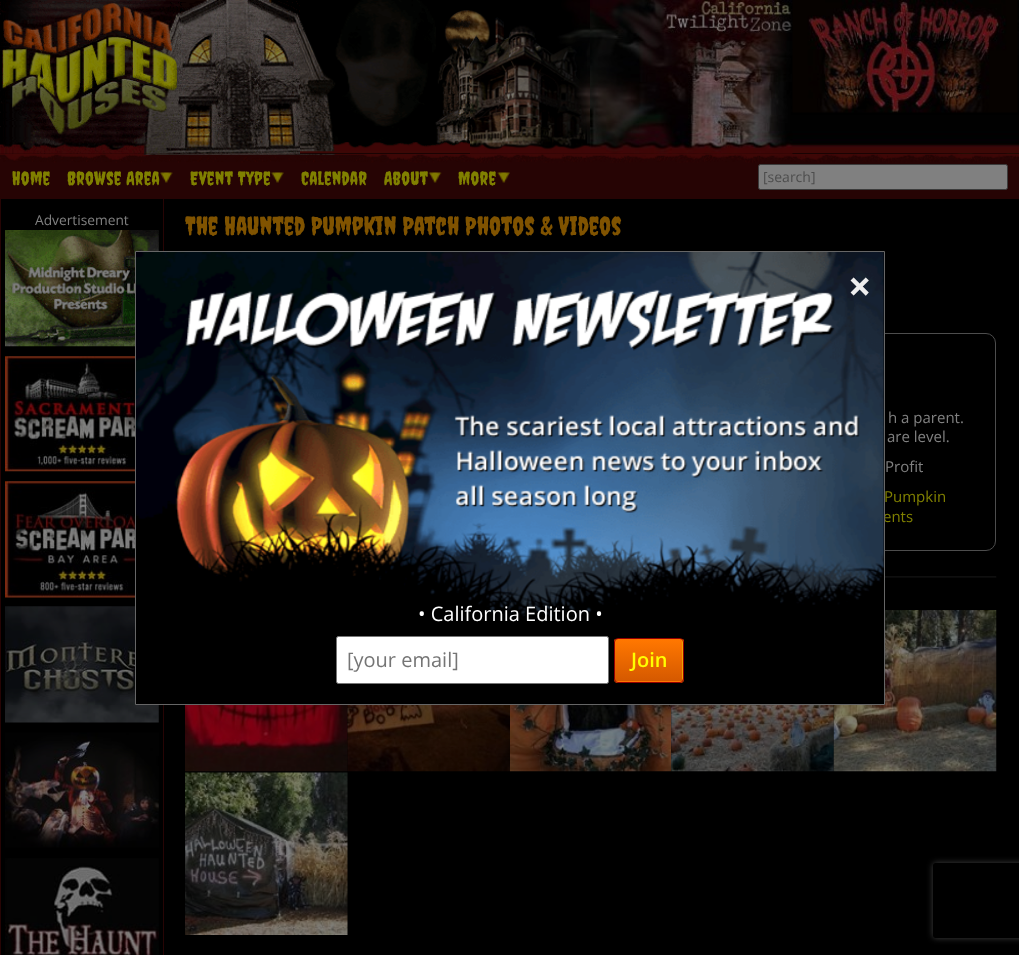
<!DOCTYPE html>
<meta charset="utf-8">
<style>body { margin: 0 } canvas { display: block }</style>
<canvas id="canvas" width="1019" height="955"></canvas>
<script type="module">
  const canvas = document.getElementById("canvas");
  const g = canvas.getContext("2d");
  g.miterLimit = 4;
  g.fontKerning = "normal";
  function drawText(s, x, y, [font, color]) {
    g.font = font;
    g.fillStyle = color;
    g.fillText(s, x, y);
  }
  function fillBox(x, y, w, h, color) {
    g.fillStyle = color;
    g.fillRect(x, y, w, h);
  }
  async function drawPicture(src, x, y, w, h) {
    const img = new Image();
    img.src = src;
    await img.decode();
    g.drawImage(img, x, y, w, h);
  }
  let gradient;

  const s1 = ["18.75px Creepster", "#808000"];
  const s2 = ["14px Open Sans", "#4D4D4D"];
  const s3 = ["13.75px Open Sans", "#808080"];
  const s4 = ["25.6px Creepster", "#805300"];
  const s5 = ["15px Open Sans", "#808080"];
  const s6 = ["15px Open Sans", "#808000"];
  const s7 = ["bold 41px Open Sans", "#EEEEEE"];
  const s8 = ["20px Open Sans", "#FFFFFF"];
  const s9 = ["20px Open Sans", "#757575"];
  const s10 = ["600 20px Open Sans", "#FFFF00"];

  fillBox(0, 0, 1019, 955, "#FFFFFF");
  await drawPicture("pic1.png", 0, 153, 1019, 1);
  fillBox(0, 162, 1019, 37, "#260404");
  await drawPicture("pic9.png", 0, 153, 1019, 10);
  await drawPicture("pic2.png", 0, 0, 1019, 154);
  await drawPicture("pic3.png", 0, 0, 180, 154);
  await drawPicture("pic4.png", 180, 0, 120, 154);
  await drawPicture("pic5.png", 300, 0, 170, 152);
  await drawPicture("pic6.png", 470, 0, 120, 154);
  await drawPicture("pic7.png", 590, 0, 203, 154);
  await drawPicture("pic8.png", 792, 0, 226, 113);
  g.letterSpacing = "0.25px";
  drawText("Home", 12, 185, s1);
  await drawPicture("pic10.png", 160, 172, 13, 11);
  drawText("Browse Area", 67, 185, s1);
  await drawPicture("pic11.png", 271, 172, 13, 11);
  drawText("Event Type", 190, 185, s1);
  drawText("Calendar", 301, 185, s1);
  await drawPicture("pic12.png", 428, 172, 14, 11);
  drawText("About", 384, 185, s1);
  await drawPicture("pic13.png", 497, 172, 13, 11);
  drawText("More", 458, 185, s1);
  g.fillStyle = "#808080";
  g.beginPath();
  g.roundRect(758.5, 164.5, 249, 25, 2);
  g.fill();
  g.strokeStyle = "#3B3B3B";
  g.stroke();
  g.letterSpacing = "0px";
  drawText("[search]", 763, 182, s2);
  fillBox(1, 199, 1018, 756, "#000000");
  fillBox(0, 199, 1, 756, "#260404");
  fillBox(163, 199, 1, 756, "#260404");
  drawText("Advertisement", 35, 225, s3);
  await drawPicture("pic14.png", 5, 230, 154, 117);
  await drawPicture("pic15.png", 5, 356, 130, 116);
  await drawPicture("pic16.png", 5, 481, 130, 117);
  await drawPicture("pic17.png", 5, 606, 154, 117);
  await drawPicture("pic18.png", 5, 732, 154, 116);
  await drawPicture("pic19.png", 5, 858, 154, 97);
  drawText("The Haunted Pumpkin Patch Photos & Videos", 185, 235, s4);
  g.beginPath();
  g.roundRect(599.5, 333.5, 396, 217, 9.5);
  g.strokeStyle = "#4D4D4D";
  g.stroke();
  drawText("h a parent.", 888, 423, s5);
  drawText("are level.", 887, 442, s5);
  drawText("Profit", 885, 472, s5);
  drawText("Pumpkin", 884, 502, s6);
  drawText("ents", 883, 522, s6);
  await drawPicture("pic20.png", 885, 576, 112, 2);
  await drawPicture("pic21.png", 185, 705, 163, 67);
  await drawPicture("pic22.png", 347, 705, 163, 67);
  await drawPicture("pic23.png", 510, 705, 162, 67);
  await drawPicture("pic24.png", 671, 705, 163, 67);
  await drawPicture("pic25.png", 833, 610, 164, 162);
  await drawPicture("pic26.png", 185, 772, 163, 163);
  g.save();
  g.beginPath();
  g.moveTo(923, 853);
  g.lineTo(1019, 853);
  g.lineTo(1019, 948);
  g.lineTo(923, 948);
  g.closePath();
  g.moveTo(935.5, 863);
  g.lineTo(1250.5, 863);
  g.bezierCurveTo(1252, 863, 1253, 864, 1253, 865.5);
  g.lineTo(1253, 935.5);
  g.bezierCurveTo(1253, 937, 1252, 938, 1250.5, 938);
  g.lineTo(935.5, 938);
  g.bezierCurveTo(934, 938, 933, 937, 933, 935.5);
  g.lineTo(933, 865.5);
  g.bezierCurveTo(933, 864, 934, 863, 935.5, 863);
  g.closePath();
  g.clip("evenodd");
  g.fillStyle = "#404040";
  g.filter = "blur(3px)";
  g.beginPath();
  g.roundRect(933, 863, 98, 75, 2.5);
  g.fill();
  g.filter = "none";
  g.restore();
  g.fillStyle = "#000000";
  g.beginPath();
  g.rect(135.5, 251.5, 749, 453);
  g.fill();
  g.strokeStyle = "#666666";
  g.stroke();
  await drawPicture("pic27.png", 136, 252, 748, 365);
  drawText("×", 848, 301, s7);
  drawText("• California Edition •", 418, 621, s8);
  g.beginPath();
  g.roundRect(336.5, 636.5, 272, 47, 2);
  g.fill();
  g.strokeStyle = "#767676";
  g.stroke();
  drawText("[your email]", 347, 667, s9);
  g.save();
  g.beginPath();
  g.roundRect(614, 638, 70, 45, 4);
  g.clip();
  gradient = g.createLinearGradient(649, 638, 649, 681);
  gradient.addColorStop(0.05, "#FF7700");
  gradient.addColorStop(1, "#D55900");
  g.fillStyle = gradient;
  g.fillRect(614, 639, 70, 42);
  gradient = g.createLinearGradient(649, 681, 649, 723);
  gradient.addColorStop(0.05, "#FF7700");
  gradient.addColorStop(1, "#D55900");
  g.fillStyle = gradient;
  g.fillRect(614, 681, 70, 2);
  g.restore();
  g.fillStyle = "#EBA500";
  g.beginPath();
  g.moveTo(682, 642);
  g.bezierCurveTo(682, 640, 681, 639, 680, 639);
  g.bezierCurveTo(682, 639, 683, 640, 683, 642);
  g.lineTo(683, 678);
  g.bezierCurveTo(683, 679, 682, 680, 682, 681);
  g.closePath();
  g.moveTo(618, 639);
  g.bezierCurveTo(616, 639, 615, 640, 615, 642);
  g.bezierCurveTo(615, 640, 616, 639, 618, 639);
  g.closePath();
  g.fill("evenodd");
  g.beginPath();
  g.roundRect(614.5, 638.5, 69, 44, 3.5);
  g.strokeStyle = "#960000";
  g.stroke();
  drawText("Join", 631, 667, s10);
</script>
